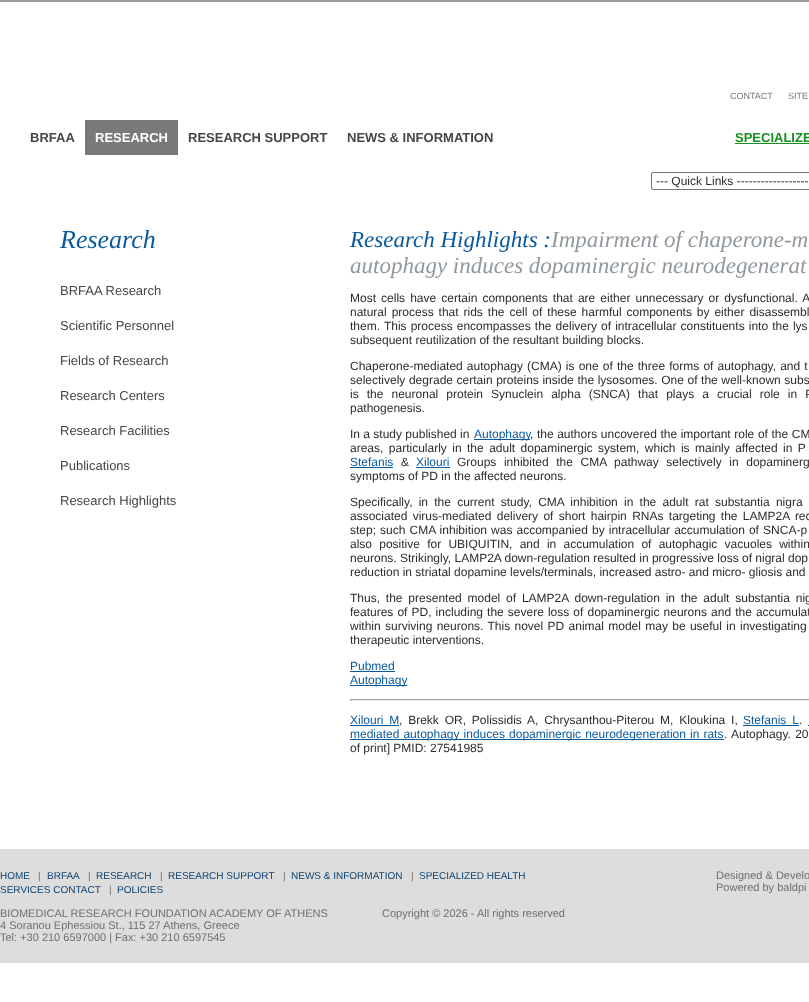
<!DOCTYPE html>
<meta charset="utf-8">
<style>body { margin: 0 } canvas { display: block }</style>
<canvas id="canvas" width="809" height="1002"></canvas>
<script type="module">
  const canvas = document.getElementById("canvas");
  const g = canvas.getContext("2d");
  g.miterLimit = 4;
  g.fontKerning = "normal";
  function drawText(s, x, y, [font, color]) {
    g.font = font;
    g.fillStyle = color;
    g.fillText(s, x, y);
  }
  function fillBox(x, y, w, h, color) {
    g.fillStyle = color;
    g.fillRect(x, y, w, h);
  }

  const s1 = ["9px Liberation Sans", "#777777"];
  const s2 = ["bold 13px Liberation Sans", "#454646"];
  const s3 = ["bold 13px Liberation Sans", "#FFFFFF"];
  const s4 = ["bold 13px Liberation Sans", "#16901F"];
  const s5 = ["12px Liberation Sans", "#2D2B2C"];
  const s6 = ["italic 26px Liberation Serif", "#09599E"];
  const s7 = ["13px Liberation Sans", "#454646"];
  const s8 = ["italic 23px Liberation Serif", "#09599E"];
  const s9 = ["italic 23px Liberation Serif", "#91989E"];
  const s10 = ["12px Liberation Sans", "#09599E"];
  const s11 = ["10px Liberation Sans", "#0D4170"];
  const s12 = ["10px Liberation Sans", "#6E6E6E"];
  const s13 = ["11px Liberation Sans", "#6E6E6E"];

  fillBox(0, 0, 809, 1002, "#FFFFFF");
  fillBox(0, 0, 809, 2, "#999999");
  drawText("CONTACT", 730, 99, s1);
  drawText("SITE", 788, 99, s1);
  drawText("BRFAA", 30, 142, s2);
  fillBox(85, 120, 93, 35, "#797979");
  drawText("RESEARCH", 95, 142, s3);
  drawText("RESEARCH SUPPORT", 188, 142, s2);
  drawText("NEWS & INFORMATION", 347, 142, s2);
  drawText("SPECIALIZE", 735, 142, s4);
  fillBox(735, 143, 74, 1, "#16901F");
  g.beginPath();
  g.roundRect(651.5, 172.5, 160, 17, 1.5);
  g.strokeStyle = "#767676";
  g.stroke();
  drawText("--- Quick Links ------------------", 656, 185, s5);
  drawText("Research", 60, 248, s6);
  drawText("BRFAA Research", 60, 295, s7);
  drawText("Scientific Personnel", 60, 330, s7);
  drawText("Fields of Research", 60, 365, s7);
  drawText("Research Centers", 60, 400, s7);
  drawText("Research Facilities", 60, 435, s7);
  drawText("Publications", 60, 470, s7);
  drawText("Research Highlights", 60, 505, s7);
  drawText("Research Highlights :", 350, 247, s8);
  drawText("Impairment of chaperone-m", 551, 247, s9);
  drawText("autophagy induces dopaminergic neurodegenerat", 350, 273, s9);
  g.wordSpacing = "1.75px";
  drawText("Most cells have certain components that are either unnecessary or dysfunctional. A", 350, 302, s5);
  g.wordSpacing = "1.6px";
  drawText("natural process that rids the cell of these harmful components by either disassembl", 350, 316, s5);
  g.wordSpacing = "0.75px";
  drawText("them. This process encompasses the delivery of intracellular constituents into the lys", 350, 330, s5);
  g.wordSpacing = "0px";
  drawText("subsequent reutilization of the resultant building blocks.", 350, 344, s5);
  g.wordSpacing = "0.8px";
  drawText("Chaperone-mediated autophagy (CMA) is one of the three forms of autophagy, and t", 350, 370, s5);
  g.wordSpacing = "0.25px";
  drawText("selectively degrade certain proteins inside the lysosomes. One of the well-known subs", 350, 384, s5);
  g.wordSpacing = "4.75px";
  drawText("is the neuronal protein Synuclein alpha (SNCA) that plays a crucial role in P", 350, 398, s5);
  g.wordSpacing = "0px";
  drawText("pathogenesis.", 350, 412, s5);
  drawText("In a study published in", 350, 438, s5);
  fillBox(474, 439, 56, 1, "#0959A0");
  drawText("Autophagy", 474, 438, s10);
  g.wordSpacing = "0.25px";
  drawText(", the authors uncovered the important role of the CM", 530, 438, s5);
  g.wordSpacing = "2.1px";
  drawText("areas, particularly in the adult dopaminergic system, which is mainly affected in P", 350, 452, s5);
  g.wordSpacing = "0px";
  drawText("Stefanis", 350, 466, s10);
  fillBox(350, 467, 43, 1, "#0959A0");
  drawText("&", 401, 466, s5);
  drawText("Xilouri", 416, 466, s10);
  fillBox(416, 467, 34, 1, "#0959A0");
  g.wordSpacing = "4.25px";
  drawText("Groups inhibited the CMA pathway selectively in dopaminerg", 457, 466, s5);
  g.wordSpacing = "0px";
  drawText("symptoms of PD in the affected neurons.", 350, 480, s5);
  g.wordSpacing = "2.9px";
  drawText("Specifically, in the current study, CMA inhibition in the adult rat substantia nigra", 350, 506, s5);
  g.wordSpacing = "2px";
  drawText("associated virus-mediated delivery of short hairpin RNAs targeting the LAMP2A rec", 350, 520, s5);
  g.wordSpacing = "0.75px";
  drawText("step; such CMA inhibition was accompanied by intracellular accumulation of SNCA-p", 350, 534, s5);
  g.wordSpacing = "3.9px";
  drawText("also positive for UBIQUITIN, and in accumulation of autophagic vacuoles within", 350, 548, s5);
  g.wordSpacing = "0px";
  drawText("neurons. Strikingly, LAMP2A down-regulation resulted in progressive loss of nigral dop", 350, 562, s5);
  drawText("reduction in striatal dopamine levels/terminals, increased astro- and micro- gliosis and", 350, 576, s5);
  g.wordSpacing = "2.5px";
  drawText("Thus, the presented model of LAMP2A down-regulation in the adult substantia nig", 350, 602, s5);
  g.wordSpacing = "0.75px";
  drawText("features of PD, including the severe loss of dopaminergic neurons and the accumulat", 350, 616, s5);
  g.wordSpacing = "1px";
  drawText("within surviving neurons. This novel PD animal model may be useful in investigating", 350, 630, s5);
  g.wordSpacing = "0px";
  drawText("therapeutic interventions.", 350, 644, s5);
  drawText("Pubmed", 350, 670, s10);
  fillBox(350, 671, 45, 1, "#0959A0");
  fillBox(350, 685, 57, 1, "#0959A0");
  drawText("Autophagy", 350, 684, s10);
  fillBox(350, 699, 459, 1, "#9F9F9F");
  fillBox(350, 700, 459, 1, "#EEEEEE");
  fillBox(350, 699, 1, 2, "#9F9F9F");
  g.wordSpacing = "2.5px";
  drawText("Xilouri M", 350, 724, s10);
  fillBox(350, 725, 49, 1, "#0959A0");
  drawText(", Brekk OR, Polissidis A, Chrysanthou-Piterou M, Kloukina I,", 399, 724, s5);
  drawText("Stefanis L", 743, 724, s10);
  fillBox(743, 725, 56, 1, "#0959A0");
  g.wordSpacing = "0px";
  drawText(".", 799, 724, s5);
  fillBox(350, 739, 374, 1, "#0959A0");
  g.wordSpacing = "0.75px";
  drawText("mediated autophagy induces dopaminergic neurodegeneration in rats", 350, 738, s10);
  fillBox(808, 725, 1, 1, "#0959A0");
  g.wordSpacing = "1px";
  drawText(". Autophagy. 20", 724, 738, s5);
  g.wordSpacing = "0px";
  drawText("of print] PMID: 27541985", 350, 752, s5);
  fillBox(0, 849, 809, 114, "#DDDDDD");
  drawText("HOME", 0, 879, s11);
  drawText("|", 38, 879, s12);
  drawText("BRFAA", 47, 879, s11);
  drawText("|", 88, 879, s12);
  drawText("RESEARCH", 96, 879, s11);
  drawText("|", 160, 879, s12);
  drawText("RESEARCH SUPPORT", 168, 879, s11);
  drawText("|", 283, 879, s12);
  drawText("NEWS & INFORMATION", 291, 879, s11);
  drawText("|", 411, 879, s12);
  drawText("SPECIALIZED HEALTH", 419, 879, s11);
  drawText("SERVICES CONTACT", 0, 893, s11);
  drawText("|", 109, 893, s12);
  drawText("POLICIES", 117, 893, s11);
  drawText("Designed & Develo", 716, 879, s13);
  drawText("Powered by baldpi", 716, 891, s13);
  drawText("BIOMEDICAL RESEARCH FOUNDATION ACADEMY OF ATHENS", 0, 917, s13);
  drawText("Copyright © 2026 - All rights reserved", 382, 917, s13);
  drawText("4 Soranou Ephessiou St., 115 27 Athens, Greece", 0, 929, s13);
  drawText("Tel: +30 210 6597000 | Fax: +30 210 6597545", 0, 941, s13);
</script>
